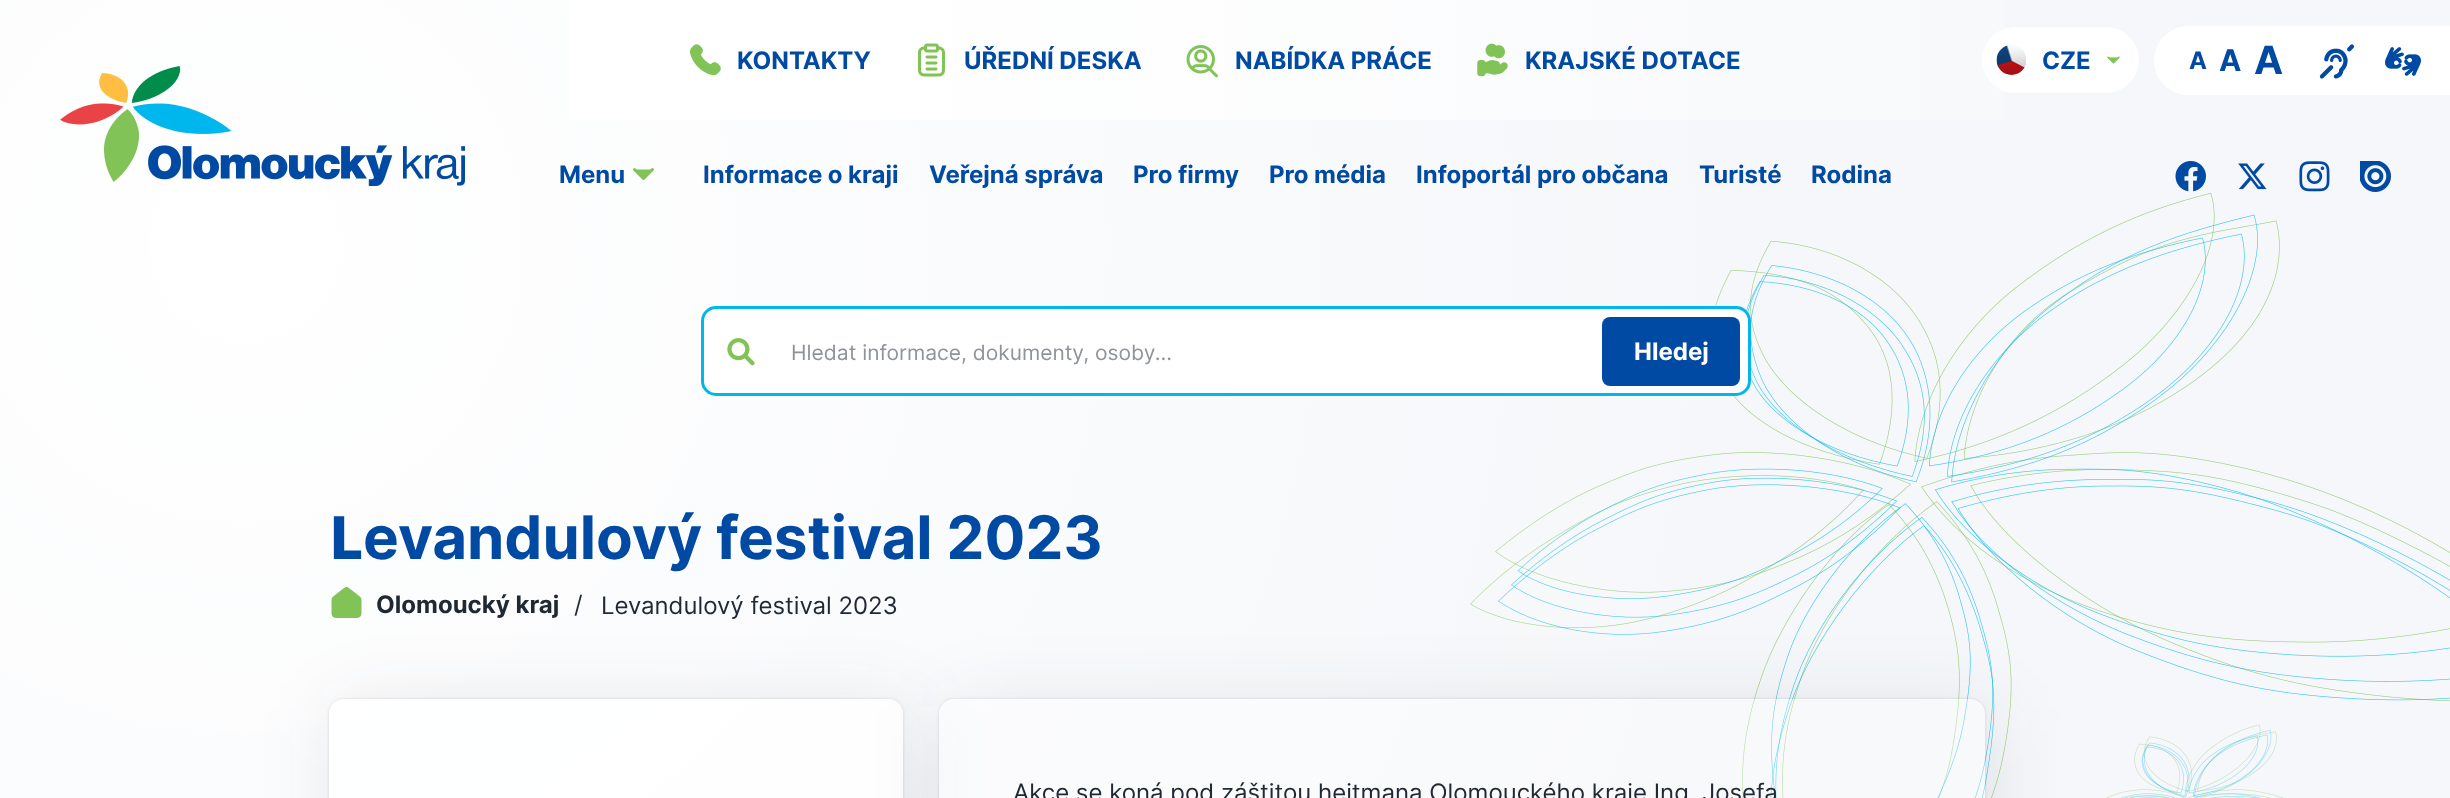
<!DOCTYPE html>
<meta charset="utf-8">
<style>body { margin: 0 } canvas { display: block }</style>
<canvas id="canvas" width="2450" height="798"></canvas>
<script type="module">
  const canvas = document.getElementById("canvas");
  const g = canvas.getContext("2d");
  g.miterLimit = 4;
  g.fontKerning = "normal";
  function drawText(s, x, y, [font, color]) {
    g.font = font;
    g.fillStyle = color;
    g.fillText(s, x, y);
  }
  function fillBox(x, y, w, h, color) {
    g.fillStyle = color;
    g.fillRect(x, y, w, h);
  }
  function fillRounded(x, y, w, h, r, color) {
    g.fillStyle = color;
    g.beginPath();
    g.roundRect(x, y, w, h, r);
    g.fill();
  }
  async function drawPicture(src, x, y, w, h) {
    const img = new Image();
    img.src = src;
    await img.decode();
    g.drawImage(img, x, y, w, h);
  }
  let gradient;

  const s1 = ["bold 24px Inter", "#004AA4"];
  const s2 = ["bold 30px Inter", "#004AA4"];
  const s3 = ["bold 39px Inter", "#004AA4"];
  const s4 = ["21px Inter", "#8F9499"];
  const s5 = ["bold 24px Inter", "#FFFFFF"];
  const s6 = ["800 60px Noto Sans", "#004AA4"];
  const s7 = ["bold 60px Inter", "#004AA4"];
  const s8 = ["bold 24px Inter", "#1F2833"];
  const s9 = ["24px Inter", "#1F2833"];

  fillBox(0, 0, 2450, 798, "#F5F7FA");
  await drawPicture("pic1.png", 1470, 193, 980, 605);
  gradient = g.createRadialGradient(245, 245, 0, 245, 245, 3120);
  gradient.addColorStop(0, "#FFFFFF");
  gradient.addColorStop(0.5, "rgba(255, 255, 255, 0)");
  g.fillStyle = gradient;
  g.fillRect(0, 0, 1771, 798);
  gradient = g.createLinearGradient(0, 60, 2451, 60);
  gradient.addColorStop(0.3, "#FFFFFF");
  gradient.addColorStop(1, "rgba(255, 255, 255, 0)");
  g.fillStyle = gradient;
  g.fillRect(570, 0, 1434, 120);
  await drawPicture("pic2.png", 689, 44, 32, 32);
  drawText("KONTAKTY", 737, 69, s1);
  await drawPicture("pic3.png", 918, 43, 27, 34);
  drawText("ÚŘEDNÍ DESKA", 964, 69, s1);
  await drawPicture("pic4.png", 1186, 45, 32, 33);
  drawText("NABÍDKA PRÁCE", 1235, 69, s1);
  await drawPicture("pic5.png", 1477, 43, 31, 34);
  drawText("KRAJSKÉ DOTACE", 1525, 69, s1);
  fillRounded(1982, 27, 157, 66, 33, "#FFFFFF");
  await drawPicture("pic6.png", 1996, 45, 31, 30);
  drawText("CZE", 2042, 69, s1);
  await drawPicture("pic7.png", 2107, 56, 13, 8);
  g.fillStyle = "#FFFFFF";
  g.beginPath();
  g.moveTo(2188.5, 26);
  g.lineTo(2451, 26);
  g.lineTo(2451, 95);
  g.lineTo(2188.5, 95);
  g.bezierCurveTo(2169.5, 95, 2154, 79.5, 2154, 60.5);
  g.bezierCurveTo(2154, 41.5, 2169.5, 26, 2188.5, 26);
  g.closePath();
  g.fill();
  drawText("A", 2189, 69, s1);
  drawText("A", 2219, 71, s2);
  drawText("A", 2254, 74, s3);
  await drawPicture("pic8.png", 2319, 44, 36, 35);
  await drawPicture("pic9.png", 2385, 47, 36, 29);
  await drawPicture("pic10.png", 60, 66, 405, 120);
  drawText("Menu", 559, 183, s1);
  g.fillStyle = "#81C357";
  g.beginPath();
  g.moveTo(634.5, 169.5);
  g.lineTo(643.5, 178.5);
  g.lineTo(652.5, 169.5);
  g.fill();
  g.strokeStyle = "#81C357";
  g.lineWidth = 3;
  g.lineCap = "round";
  g.lineJoin = "round";
  g.stroke();
  drawText("Informace o kraji", 703, 183, s1);
  drawText("Veřejná správa", 929, 183, s1);
  drawText("Pro firmy", 1133, 183, s1);
  drawText("Pro média", 1269, 183, s1);
  drawText("Infoportál pro občana", 1416, 183, s1);
  drawText("Turisté", 1699, 183, s1);
  drawText("Rodina", 1811, 183, s1);
  await drawPicture("pic11.png", 2175, 161, 31, 31);
  await drawPicture("pic12.png", 2238, 163, 29, 27);
  await drawPicture("pic13.png", 2299, 161, 31, 31);
  await drawPicture("pic14.png", 2360, 161, 31, 31);
  g.fillStyle = "#FFFFFF";
  g.beginPath();
  g.roundRect(702.5, 307.5, 1047, 87, 13.5);
  g.fill();
  g.strokeStyle = "#00B7ED";
  g.lineJoin = "miter";
  g.stroke();
  await drawPicture("pic15.png", 727, 338, 28, 28);
  drawText("Hledat informace, dokumenty, osoby...", 791, 360, s4);
  fillRounded(1602, 317, 138, 69, 8, "#004AA4");
  drawText("Hledej", 1634, 360, s5);
  drawText("L", 329, 559, s6);
  drawText("evandulový festival 2023", 363, 559, s7);
  g.save();
  g.beginPath();
  g.moveTo(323, 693);
  g.lineTo(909, 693);
  g.lineTo(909, 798);
  g.lineTo(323, 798);
  g.closePath();
  g.moveTo(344, 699);
  g.lineTo(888, 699);
  g.bezierCurveTo(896.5, 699, 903, 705.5, 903, 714);
  g.lineTo(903, 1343);
  g.bezierCurveTo(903, 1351.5, 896.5, 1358, 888, 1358);
  g.lineTo(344, 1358);
  g.bezierCurveTo(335.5, 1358, 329, 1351.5, 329, 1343);
  g.lineTo(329, 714);
  g.bezierCurveTo(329, 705.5, 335.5, 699, 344, 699);
  g.closePath();
  g.clip("evenodd");
  g.fillStyle = "rgba(31, 40, 51, 0.15)";
  g.filter = "blur(1.5px)";
  g.beginPath();
  g.roundRect(329, 699, 574, 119, 15);
  g.fill();
  g.filter = "none";
  g.restore();
  await drawPicture("pic16.png", 331, 587, 31, 31);
  g.save();
  g.beginPath();
  g.moveTo(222, 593);
  g.lineTo(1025, 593);
  g.lineTo(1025, 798);
  g.lineTo(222, 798);
  g.closePath();
  g.moveTo(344, 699);
  g.lineTo(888, 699);
  g.bezierCurveTo(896.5, 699, 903, 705.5, 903, 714);
  g.lineTo(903, 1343);
  g.bezierCurveTo(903, 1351.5, 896.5, 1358, 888, 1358);
  g.lineTo(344, 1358);
  g.bezierCurveTo(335.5, 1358, 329, 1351.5, 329, 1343);
  g.lineTo(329, 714);
  g.bezierCurveTo(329, 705.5, 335.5, 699, 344, 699);
  g.closePath();
  g.clip("evenodd");
  g.fillStyle = "rgba(31, 40, 51, 0.1)";
  g.filter = "blur(37.5px)";
  g.beginPath();
  g.roundRect(336, 707, 575, 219, 15);
  g.fill();
  g.filter = "none";
  g.restore();
  fillRounded(329, 699, 574, 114, 15, "rgba(255, 255, 255, 0.8)");
  drawText("Olomoucký kraj", 376, 613, s8);
  drawText("/", 574, 613, s9);
  drawText("Levandulový festival 2023", 601, 614, s9);
  g.save();
  g.beginPath();
  g.moveTo(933, 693);
  g.lineTo(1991, 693);
  g.lineTo(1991, 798);
  g.lineTo(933, 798);
  g.closePath();
  g.moveTo(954, 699);
  g.lineTo(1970, 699);
  g.bezierCurveTo(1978.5, 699, 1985, 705.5, 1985, 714);
  g.lineTo(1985, 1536);
  g.bezierCurveTo(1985, 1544.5, 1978.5, 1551, 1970, 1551);
  g.lineTo(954, 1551);
  g.bezierCurveTo(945.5, 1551, 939, 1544.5, 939, 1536);
  g.lineTo(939, 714);
  g.bezierCurveTo(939, 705.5, 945.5, 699, 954, 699);
  g.closePath();
  g.clip("evenodd");
  g.fillStyle = "rgba(31, 40, 51, 0.15)";
  g.filter = "blur(1.5px)";
  g.beginPath();
  g.roundRect(939, 699, 1046, 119, 15);
  g.fill();
  g.filter = "none";
  g.restore();
  g.save();
  g.beginPath();
  g.moveTo(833, 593);
  g.lineTo(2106, 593);
  g.lineTo(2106, 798);
  g.lineTo(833, 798);
  g.closePath();
  g.moveTo(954, 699);
  g.lineTo(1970, 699);
  g.bezierCurveTo(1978.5, 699, 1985, 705.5, 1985, 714);
  g.lineTo(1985, 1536);
  g.bezierCurveTo(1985, 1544.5, 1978.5, 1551, 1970, 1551);
  g.lineTo(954, 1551);
  g.bezierCurveTo(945.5, 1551, 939, 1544.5, 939, 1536);
  g.lineTo(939, 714);
  g.bezierCurveTo(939, 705.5, 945.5, 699, 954, 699);
  g.closePath();
  g.clip("evenodd");
  g.fillStyle = "rgba(31, 40, 51, 0.1)";
  g.filter = "blur(37.5px)";
  g.beginPath();
  g.roundRect(947, 707, 1045, 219, 15);
  g.fill();
  g.filter = "none";
  g.restore();
  fillRounded(939, 699, 1046, 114, 15, "rgba(255, 255, 255, 0.3)");
  drawText("Akce se koná pod záštitou hejtmana Olomouckého kraje Ing. Josefa", 1013, 801, s9);
</script>
